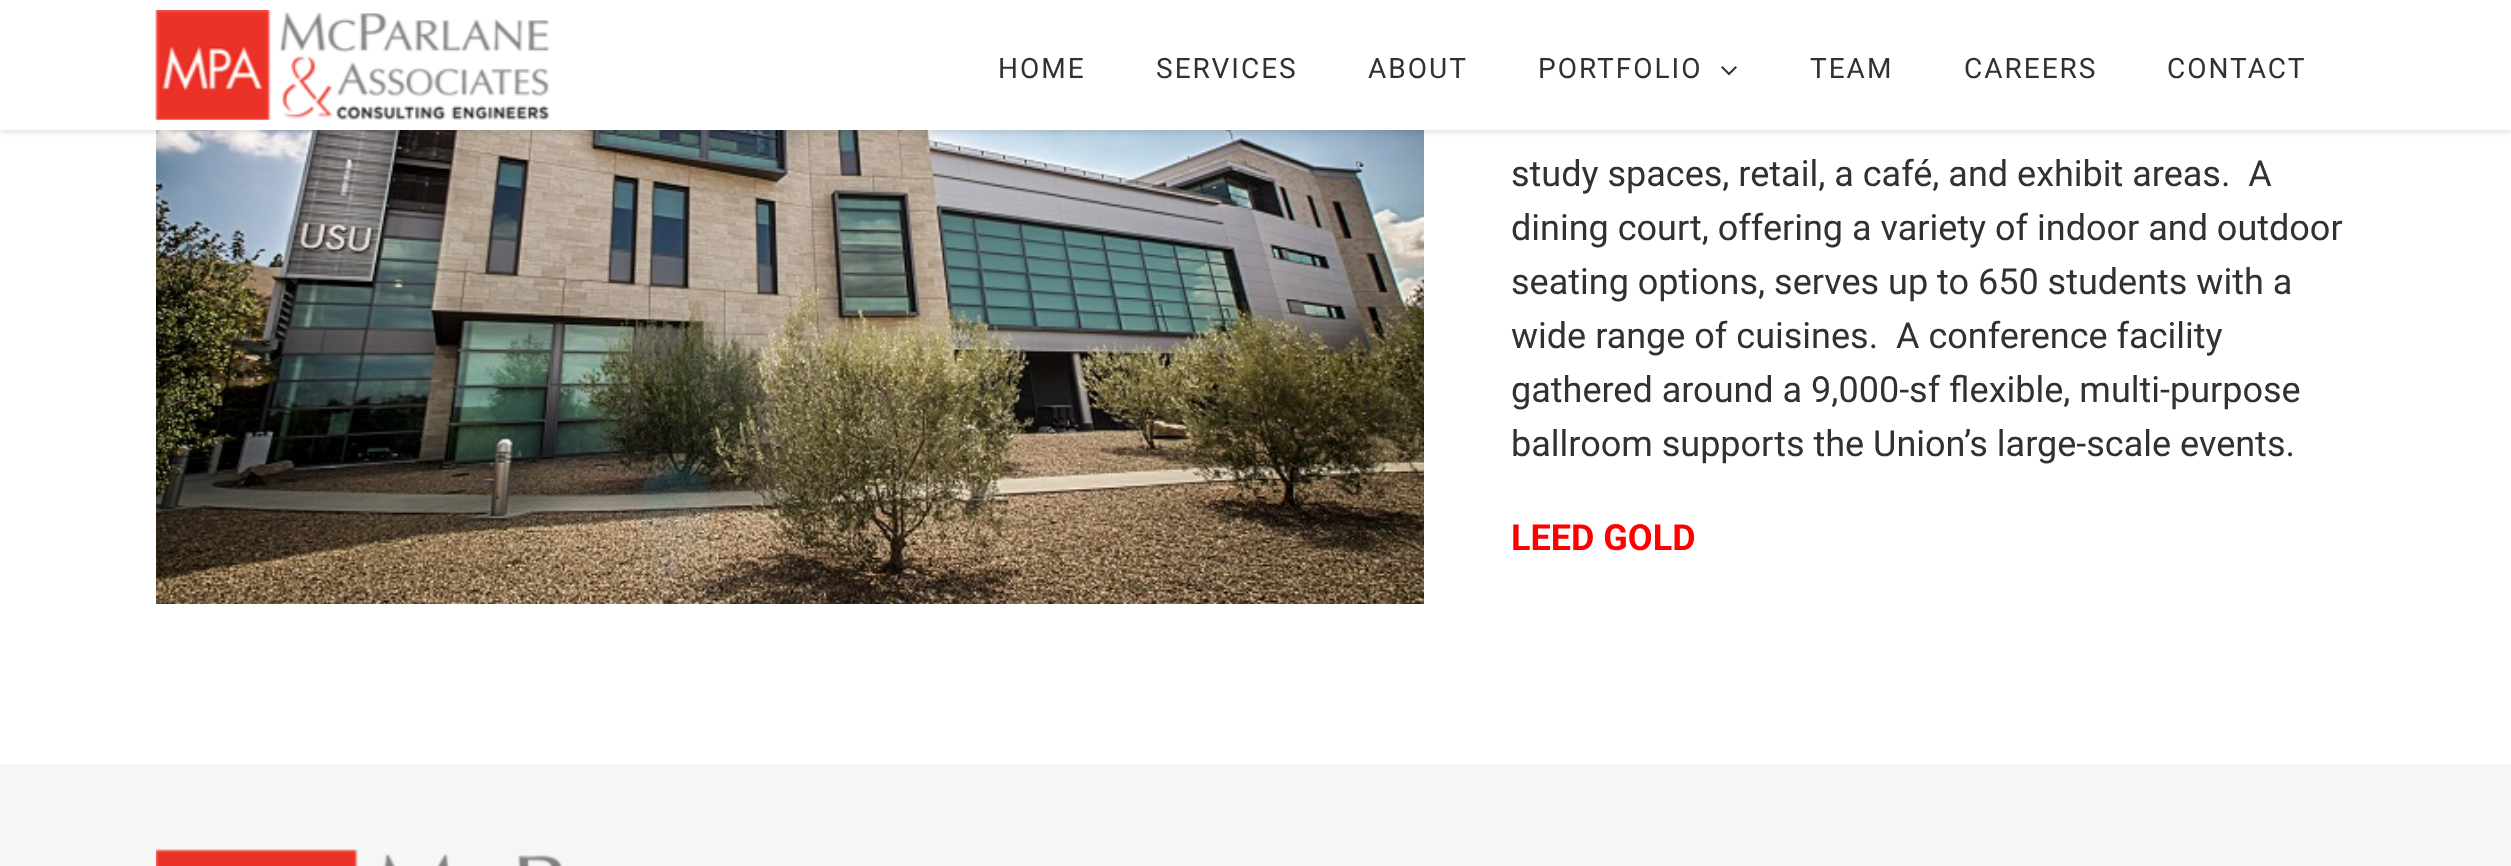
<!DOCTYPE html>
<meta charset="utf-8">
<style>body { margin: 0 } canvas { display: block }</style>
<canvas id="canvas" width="2511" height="866"></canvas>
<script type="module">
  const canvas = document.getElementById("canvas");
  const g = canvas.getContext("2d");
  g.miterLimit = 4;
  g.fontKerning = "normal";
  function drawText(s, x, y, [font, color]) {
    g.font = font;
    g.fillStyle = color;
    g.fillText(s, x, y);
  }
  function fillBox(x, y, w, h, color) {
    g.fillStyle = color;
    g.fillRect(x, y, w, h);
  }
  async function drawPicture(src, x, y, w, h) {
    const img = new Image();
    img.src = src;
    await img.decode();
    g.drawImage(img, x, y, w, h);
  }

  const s1 = ["28px Roboto", "#323031"];
  const s2 = ["36px Roboto", "#323031"];
  const s3 = ["bold 36px Roboto", "#FF0000"];

  fillBox(0, 0, 2511, 866, "#FFFFFF");
  await drawPicture("pic3.png", 156, 130, 1268, 474);
  g.fillStyle = "rgba(0, 0, 0, 0.12)";
  g.filter = "blur(3px)";
  g.beginPath();
  g.rect(0, 2, 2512, 130);
  g.fill();
  g.filter = "none";
  fillBox(0, 0, 2511, 130, "#FFFFFF");
  await drawPicture("pic1.png", 155, 10, 395, 110);
  g.letterSpacing = "2px";
  drawText("HOME", 998, 78, s1);
  drawText("SERVICES", 1156, 78, s1);
  drawText("ABOUT", 1368, 78, s1);
  drawText("PORTFOLIO", 1538, 78, s1);
  await drawPicture("pic2.png", 1721, 66, 16, 10);
  drawText("TEAM", 1810, 78, s1);
  drawText("CAREERS", 1964, 78, s1);
  drawText("CONTACT", 2167, 78, s1);
  g.letterSpacing = "0px";
  drawText("study spaces, retail, a café, and exhibit areas.  A", 1511, 186, s2);
  drawText("dining court, offering a variety of indoor and outdoor", 1511, 240, s2);
  drawText("seating options, serves up to 650 students with a", 1511, 294, s2);
  drawText("wide range of cuisines.  A conference facility", 1511, 348, s2);
  drawText("gathered around a 9,000-sf flexible, multi-purpose", 1511, 402, s2);
  drawText("ballroom supports the Union’s large-scale events.", 1511, 456, s2);
  drawText("LEED GOLD", 1511, 550, s3);
  fillBox(0, 764, 2511, 102, "#F6F6F6");
  await drawPicture("pic4.png", 156, 849, 407, 17);
</script>
